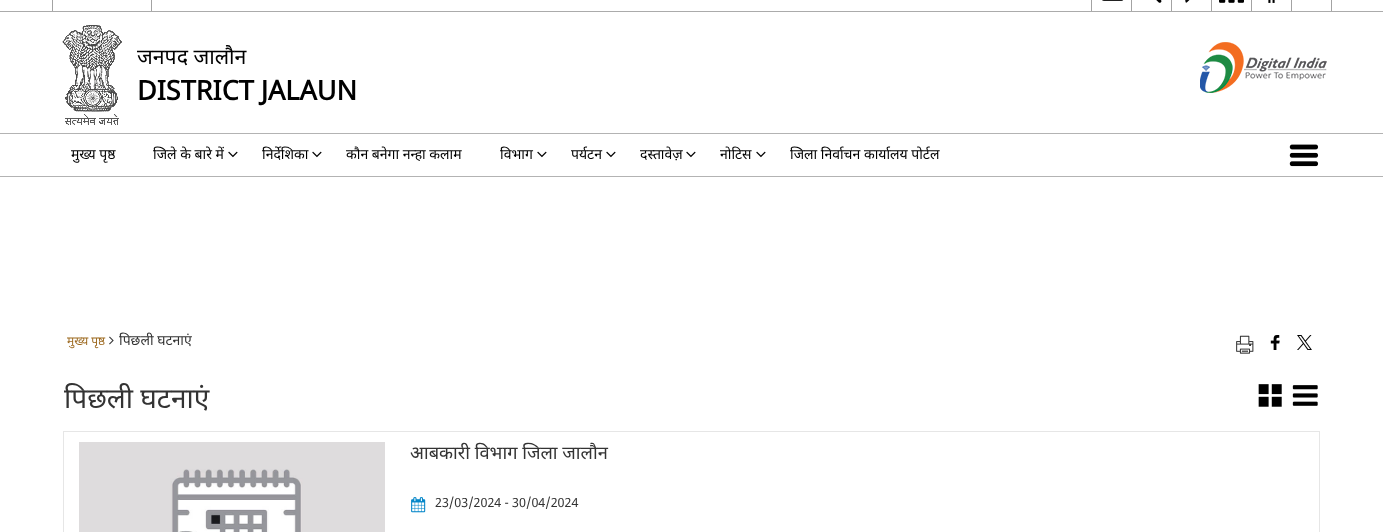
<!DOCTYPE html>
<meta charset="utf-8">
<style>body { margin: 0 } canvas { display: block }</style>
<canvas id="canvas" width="1383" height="532"></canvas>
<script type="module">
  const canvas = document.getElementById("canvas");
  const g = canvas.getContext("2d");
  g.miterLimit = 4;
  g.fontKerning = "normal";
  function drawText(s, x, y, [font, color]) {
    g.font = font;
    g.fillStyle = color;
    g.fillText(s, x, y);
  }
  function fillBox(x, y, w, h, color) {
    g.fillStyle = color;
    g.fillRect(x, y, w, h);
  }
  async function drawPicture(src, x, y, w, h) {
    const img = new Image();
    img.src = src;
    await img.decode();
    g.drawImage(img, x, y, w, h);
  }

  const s1 = ["21.25px Noto Sans", "#000000"];
  const s2 = ["bold 27px Noto Sans", "#000000"];
  const s3 = ["14px Noto Sans", "#000000"];
  const s4 = ["12px Noto Sans", "#9E6B22"];
  const s5 = ["14px Noto Sans", "#333333"];
  const s6 = ["28px Noto Sans", "#333333"];
  const s7 = ["18.25px Noto Sans", "#333333"];
  const s8 = ["12.6px 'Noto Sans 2'", "#333333"];

  fillBox(0, 0, 1383, 532, "#FFFFFF");
  fillBox(0, 11, 1383, 1, "#ABABAB");
  fillBox(52, 0, 1, 11, "#A3A3A3");
  fillBox(151, 0, 1, 11, "#A3A3A3");
  fillBox(1091, 0, 1, 11, "#A3A3A3");
  await drawPicture("pic1.png", 1102, 0, 22, 1);
  fillBox(1131, 0, 1, 11, "#A3A3A3");
  await drawPicture("pic2.png", 1156, 0, 6, 3);
  fillBox(1171, 0, 1, 11, "#A3A3A3");
  await drawPicture("pic3.png", 1185, 0, 5, 3);
  fillBox(1211, 0, 1, 11, "#A3A3A3");
  await drawPicture("pic4.png", 1219, 0, 25, 3);
  fillBox(1251, 0, 1, 11, "#A3A3A3");
  await drawPicture("pic5.png", 1268, 0, 7, 3);
  fillBox(1331, 0, 1, 11, "#A3A3A3");
  fillBox(1291, 0, 1, 11, "#A3A3A3");
  await drawPicture("pic6.png", 62, 25, 60, 100);
  drawText("जनपद जालौन", 137, 64, s1);
  drawText("DISTRICT JALAUN", 137, 100, s2);
  await drawPicture("pic7.png", 1200, 42, 127, 51);
  fillBox(0, 133, 1383, 1, "#B3B3B3");
  fillBox(0, 176, 1383, 1, "#B3B3B3");
  drawText("मुख्य पृष्ठ", 71, 159, s3);
  drawText("जिले के बारे में", 153, 159, s3);
  await drawPicture("pic8.png", 228, 151, 10, 7);
  drawText("निर्देशिका", 262, 159, s3);
  await drawPicture("pic8.png", 312, 151, 10, 7);
  drawText("कौन बनेगा नन्हा कलाम", 346, 159, s3);
  drawText("विभाग", 500, 159, s3);
  await drawPicture("pic8.png", 537, 151, 10, 7);
  drawText("पर्यटन", 571, 159, s3);
  await drawPicture("pic8.png", 606, 151, 10, 7);
  drawText("दस्तावेज़", 640, 159, s3);
  await drawPicture("pic8.png", 686, 151, 10, 7);
  drawText("नोटिस", 720, 159, s3);
  await drawPicture("pic8.png", 756, 151, 10, 7);
  drawText("जिला निर्वाचन कार्यालय पोर्टल", 790, 159, s3);
  await drawPicture("pic9.png", 1289, 144, 30, 23);
  drawText("मुख्य पृष्ठ", 67, 345, s4);
  await drawPicture("pic10.png", 109, 336, 5, 9);
  drawText("पिछली घटनाएं", 119, 345, s5);
  await drawPicture("pic11.png", 1236, 335, 18, 19);
  await drawPicture("pic12.png", 1270, 335, 10, 15);
  await drawPicture("pic13.png", 1297, 335, 15, 15);
  drawText("पिछली घटनाएं", 64, 408, s6);
  await drawPicture("pic14.png", 1258, 384, 24, 23);
  await drawPicture("pic15.png", 1292, 385, 26, 21);
  g.strokeStyle = "#E6E6E6";
  g.strokeRect(63.5, 431.5, 1256, 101);
  await drawPicture("pic16.png", 79, 442, 306, 90);
  drawText("आबकारी विभाग जिला जालौन", 410, 459, s7);
  await drawPicture("pic17.png", 411, 497, 15, 16);
  drawText("23/03/2024 - 30/04/2024", 435, 507, s8);
</script>
